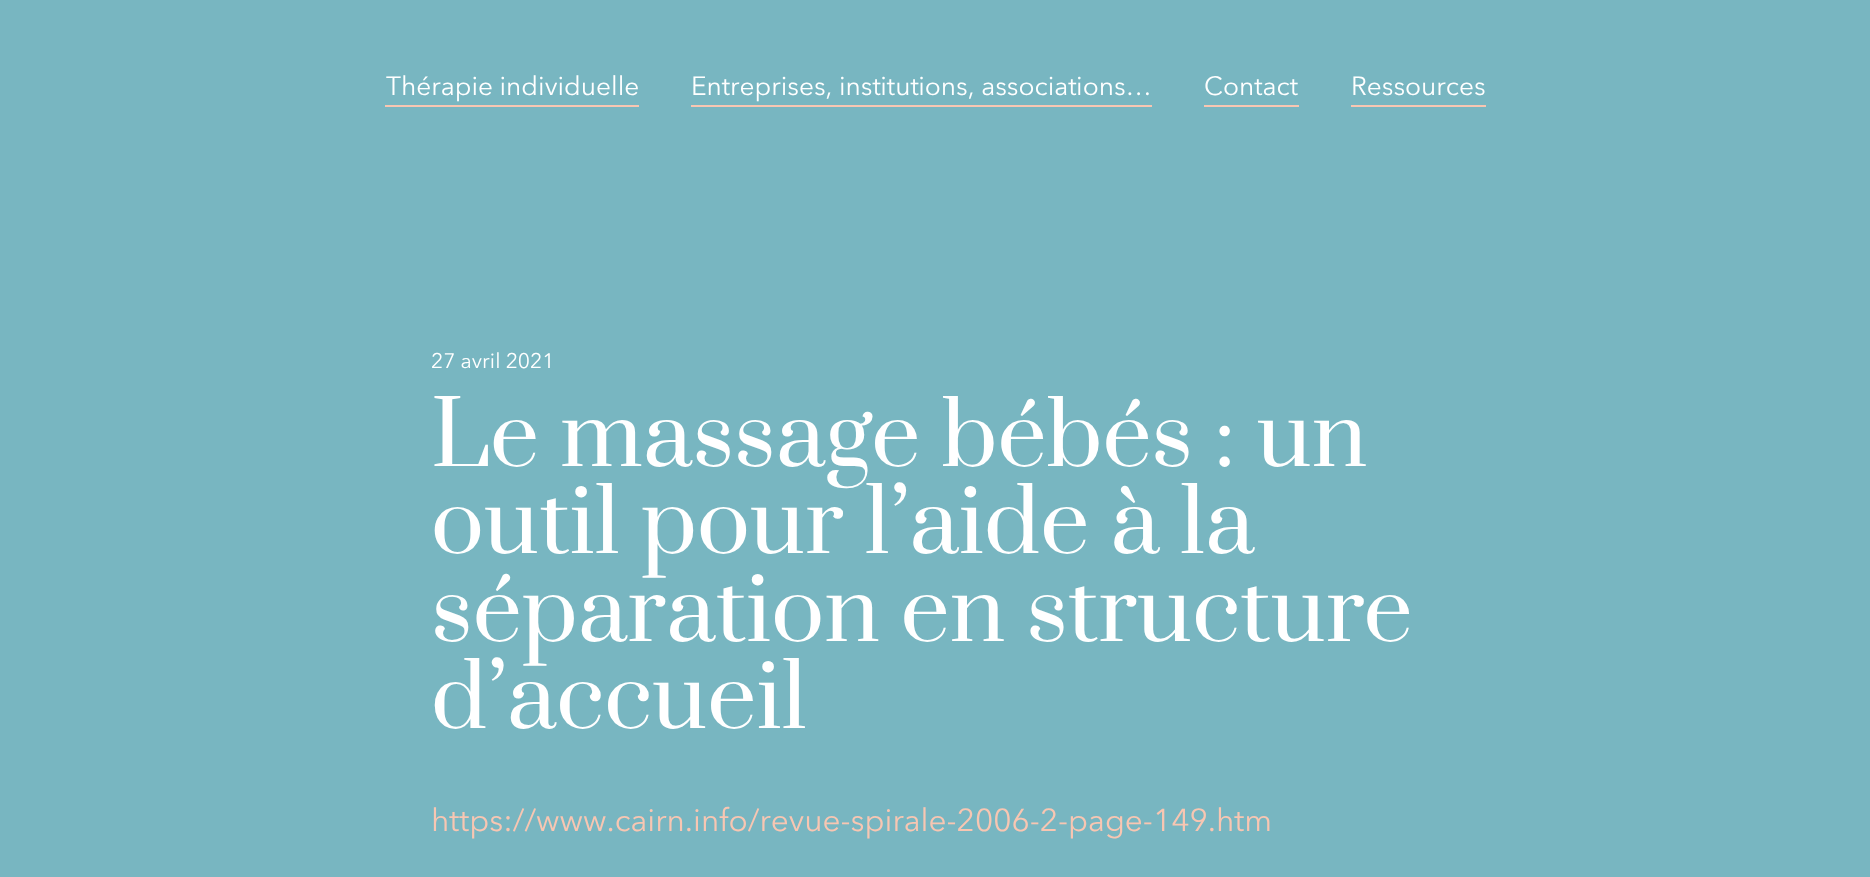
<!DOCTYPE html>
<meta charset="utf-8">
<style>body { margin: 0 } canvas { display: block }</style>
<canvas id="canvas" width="1870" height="877"></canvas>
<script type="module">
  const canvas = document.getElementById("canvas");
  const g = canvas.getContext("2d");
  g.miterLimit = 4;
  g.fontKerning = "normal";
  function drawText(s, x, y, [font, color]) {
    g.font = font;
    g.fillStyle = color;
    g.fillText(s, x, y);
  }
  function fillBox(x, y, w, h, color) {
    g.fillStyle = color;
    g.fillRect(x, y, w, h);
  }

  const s1 = ["26.25px Avenir Next", "#FFFFFF"];
  const s2 = ["21px Avenir Next", "#FFFFFF"];
  const s3 = ["87.5px Prata", "#FFFFFF"];
  const s4 = ["31.5px Avenir Next", "#F8C6B2"];

  fillBox(0, 0, 1870, 877, "#78B6C1");
  drawText("Thérapie individuelle", 386, 95, s1);
  fillBox(385, 105, 254, 2, "#F8C6B2");
  drawText("Entreprises, institutions, associations…", 691, 95, s1);
  fillBox(691, 105, 461, 2, "#F8C6B2");
  drawText("Contact", 1204, 95, s1);
  fillBox(1204, 105, 95, 2, "#F8C6B2");
  drawText("Ressources", 1351, 95, s1);
  fillBox(1351, 105, 135, 2, "#F8C6B2");
  drawText("27 avril 2021", 431, 368, s2);
  drawText("Le massage bébés : un", 431, 466, s3);
  drawText("outil pour l’aide à la", 431, 553, s3);
  drawText("séparation en structure", 431, 641, s3);
  drawText("d’accueil", 431, 728, s3);
  drawText("https://www.cairn.info/revue-spirale-2006-2-page-149.htm", 431, 831, s4);
</script>
